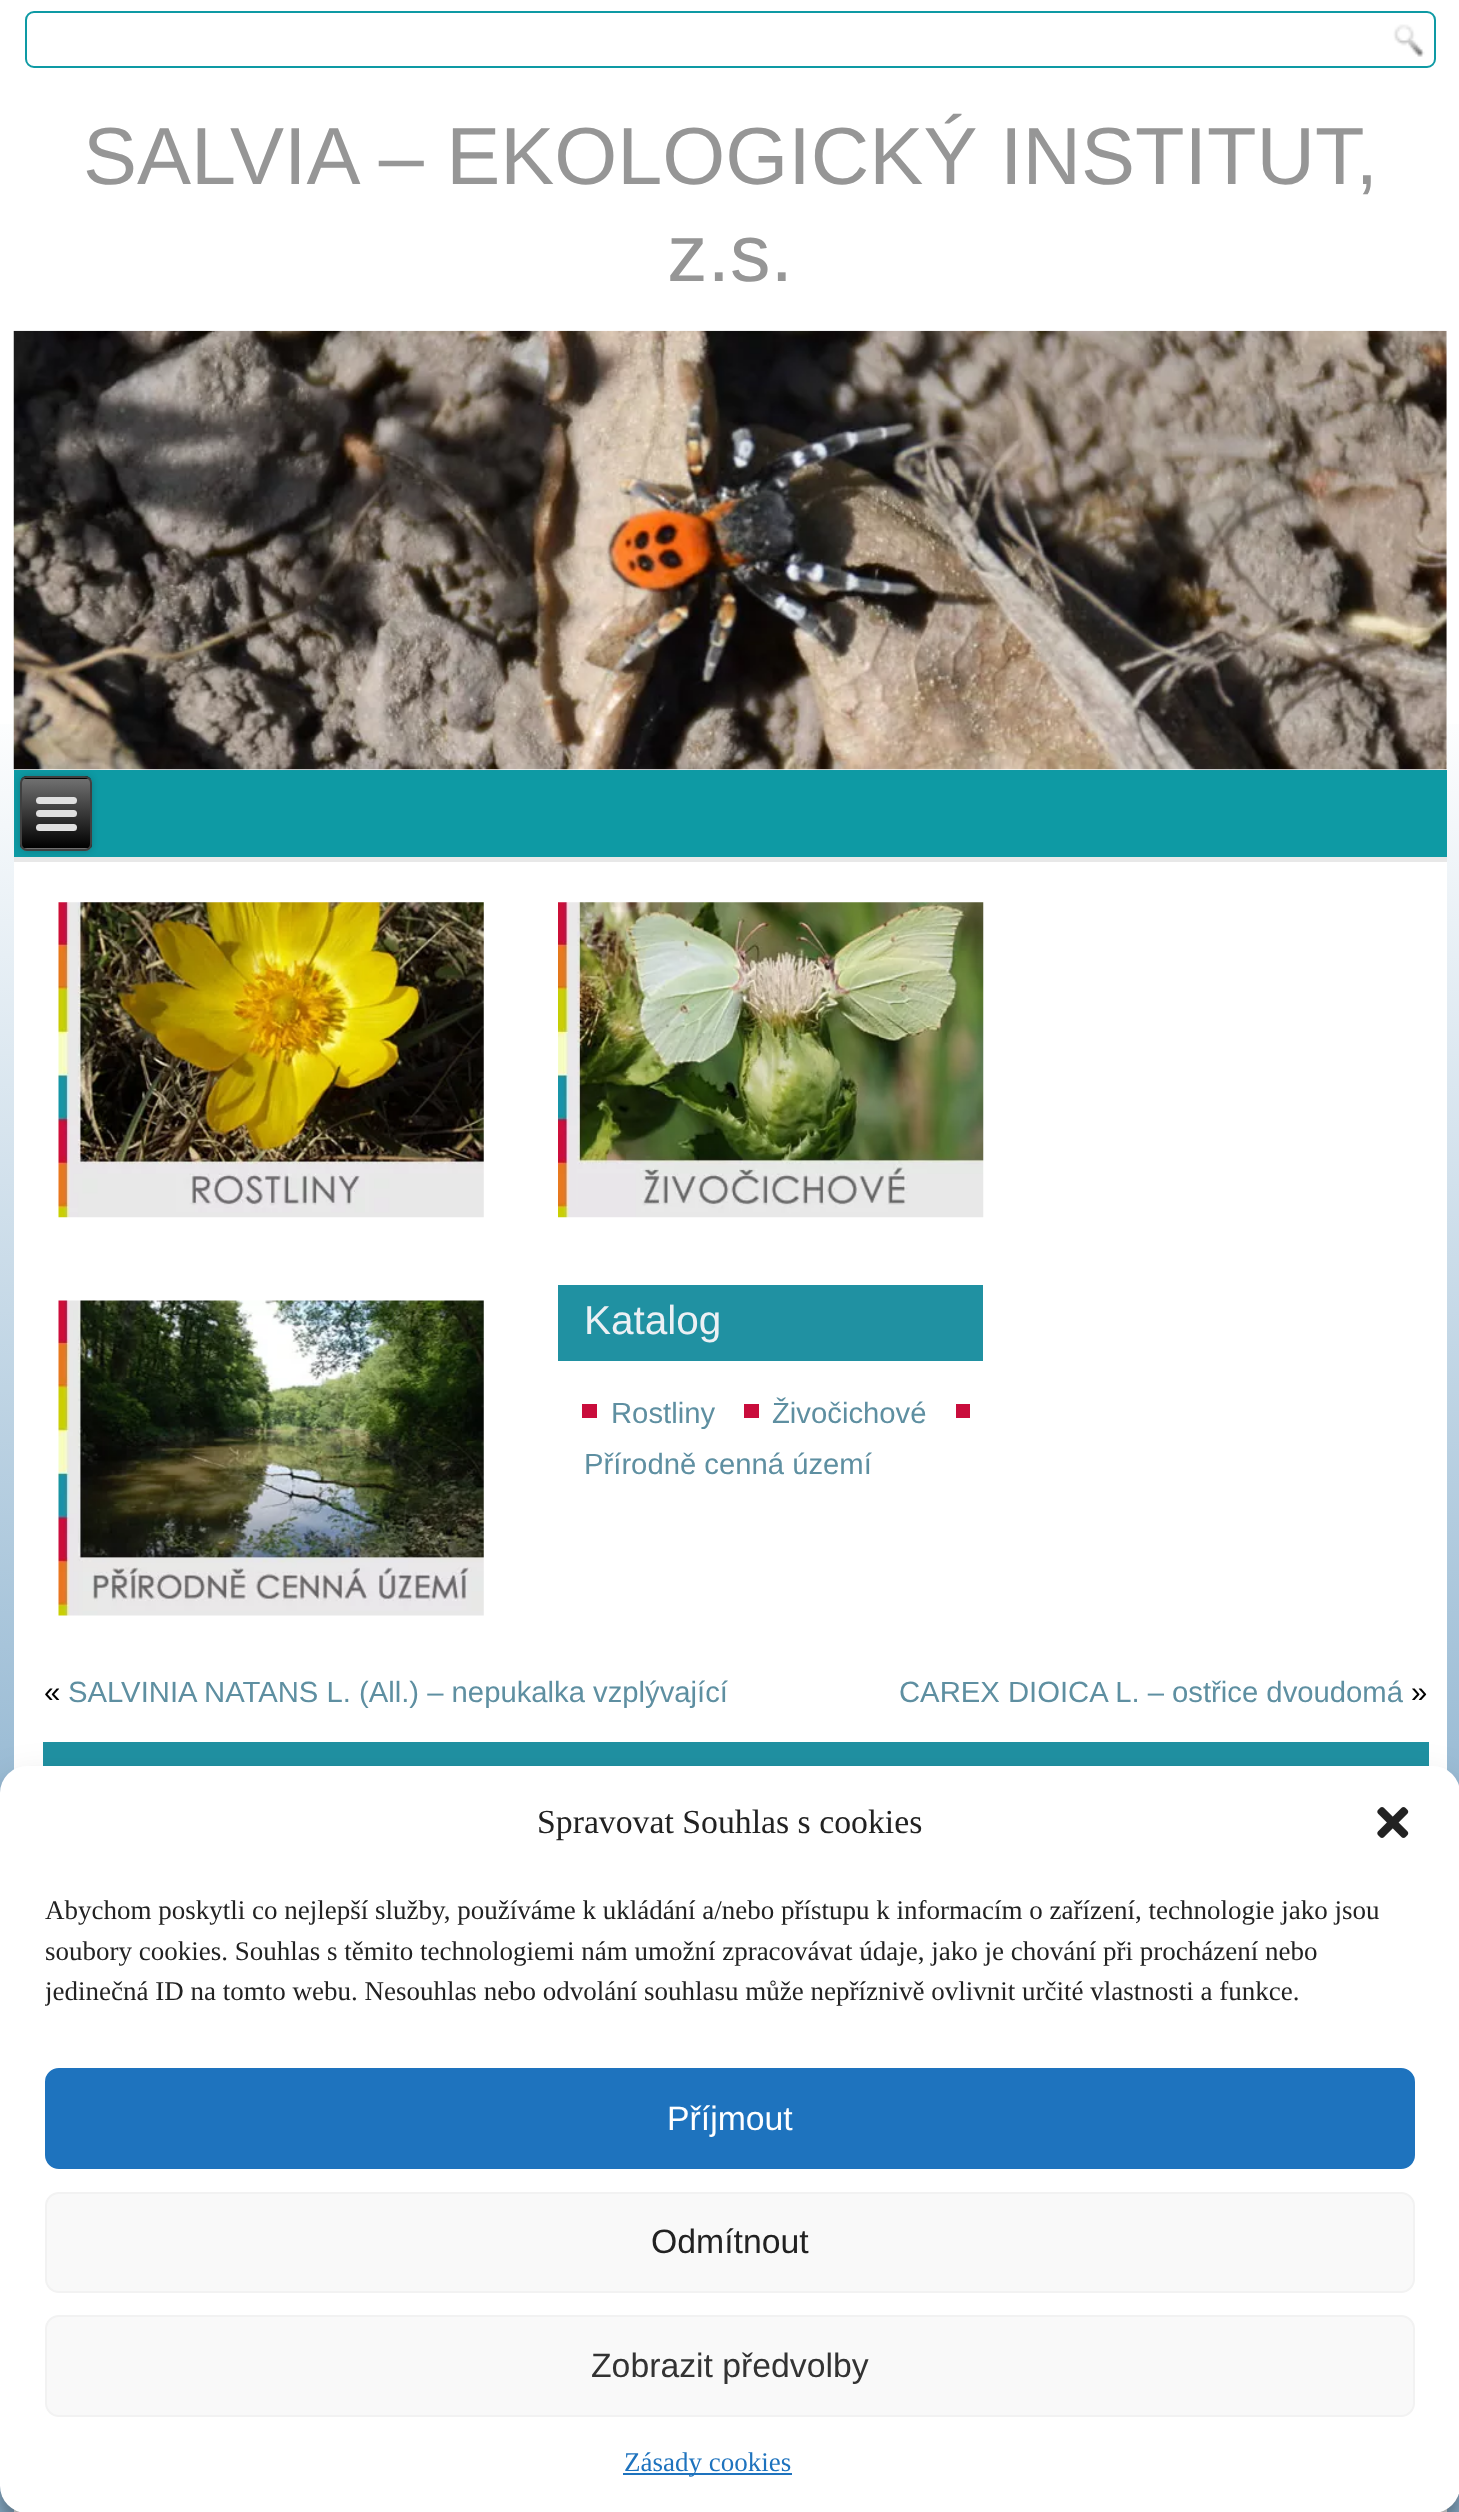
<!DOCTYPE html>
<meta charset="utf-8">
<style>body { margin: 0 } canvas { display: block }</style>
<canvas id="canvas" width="1459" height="2512"></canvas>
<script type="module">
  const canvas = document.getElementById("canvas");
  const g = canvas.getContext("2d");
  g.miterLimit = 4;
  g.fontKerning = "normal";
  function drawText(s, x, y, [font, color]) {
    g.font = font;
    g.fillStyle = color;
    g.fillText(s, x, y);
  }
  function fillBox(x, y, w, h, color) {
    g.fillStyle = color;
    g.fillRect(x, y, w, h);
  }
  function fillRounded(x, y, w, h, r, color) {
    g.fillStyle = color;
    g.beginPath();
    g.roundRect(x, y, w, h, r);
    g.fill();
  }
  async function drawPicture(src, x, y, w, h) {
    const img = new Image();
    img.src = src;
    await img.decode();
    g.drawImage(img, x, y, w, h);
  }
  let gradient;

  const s1 = ["81px Liberation Sans", "#969696"];
  const s2 = ["40.5px Liberation Sans", "#ECF0F4"];
  const s3 = ["29.25px Liberation Sans", "#5E8FA1"];
  const s4 = ["29.25px Liberation Sans", "#000000"];
  const s5 = ["33.75px Liberation Serif", "#222222"];
  const s6 = ["27px Liberation Serif", "#222222"];
  const s7 = ["33.75px Liberation Sans", "#FFFFFF"];
  const s8 = ["33.75px Liberation Sans", "#222222"];
  const s9 = ["33.75px Liberation Sans", "#333333"];
  const s10 = ["27px Liberation Serif", "#1E73BE"];

  fillBox(0, 0, 1459, 2512, "#FFFFFF");
  gradient = g.createLinearGradient(730, 0, 730, 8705);
  gradient.addColorStop(0, "#FFFFFF");
  gradient.addColorStop(0.08, "#FFFFFF");
  gradient.addColorStop(0.23, "#86AECC");
  gradient.addColorStop(1, "#FFFFFF");
  g.fillStyle = gradient;
  g.fillRect(0, 724, 1459, 1788);
  fillBox(14, 724, 1433, 1788, "#FFFFFF");
  g.beginPath();
  g.roundRect(26, 12, 1409, 55, 8);
  g.strokeStyle = "#0E9AA4";
  g.lineWidth = 2;
  g.stroke();
  await drawPicture("pic1.png", 1393, 24, 32, 33);
  drawText("SALVIA – EKOLOGICKÝ INSTITUT,", 83, 184, s1);
  drawText("z.s.", 667, 281, s1);
  await drawPicture("pic2.png", 13, 330, 1434, 440);
  fillBox(14, 770, 1433, 87, "#0E9AA4");
  fillBox(14, 857, 1433, 5, "#E8E8E8");
  g.fillStyle = "rgba(0, 0, 0, 0.2)";
  g.filter = "blur(3.5px)";
  g.beginPath();
  g.roundRect(20, 776, 72, 75, 7);
  g.fill();
  g.filter = "none";
  g.save();
  g.beginPath();
  g.roundRect(20, 776, 72, 75, 7);
  g.clip();
  gradient = g.createLinearGradient(56, 709, 56, 779);
  gradient.addColorStop(0, "#707070");
  gradient.addColorStop(1, "#000000");
  g.fillStyle = gradient;
  g.fillRect(20, 776, 72, 3);
  gradient = g.createLinearGradient(56, 779, 56, 848);
  gradient.addColorStop(0, "#707070");
  gradient.addColorStop(1, "#000000");
  g.fillStyle = gradient;
  g.fillRect(20, 779, 72, 69);
  gradient = g.createLinearGradient(56, 848, 56, 918);
  gradient.addColorStop(0, "#707070");
  gradient.addColorStop(1, "#000000");
  g.fillStyle = gradient;
  g.fillRect(20, 848, 72, 3);
  g.restore();
  g.beginPath();
  g.roundRect(21, 777, 70, 73, 6);
  g.strokeStyle = "#404040";
  g.stroke();
  fillRounded(36, 797, 41, 7, 3.5, "#E0E0E0");
  fillRounded(36, 810, 41, 7, 3.5, "#E0E0E0");
  fillRounded(36, 824, 41, 7, 3.5, "#E0E0E0");
  await drawPicture("pic3.png", 58, 902, 426, 316);
  await drawPicture("pic4.png", 558, 902, 426, 316);
  await drawPicture("pic5.png", 58, 1300, 426, 316);
  fillBox(558, 1285, 425, 76, "#2091A2");
  drawText("Katalog", 584, 1334, s2);
  fillBox(582, 1404, 15, 14, "#C90D3C");
  drawText("Rostliny", 611, 1423, s3);
  fillBox(744, 1404, 15, 14, "#C90D3C");
  drawText("Živočichové", 772, 1423, s3);
  fillBox(956, 1404, 14, 14, "#C90D3C");
  drawText("Přírodně cenná území", 584, 1474, s3);
  drawText("«", 44, 1702, s4);
  drawText("SALVINIA NATANS L. (All.) – nepukalka vzplývající", 68, 1702, s3);
  drawText("CAREX DIOICA L. – ostřice dvoudomá", 899, 1702, s3);
  drawText("»", 1411, 1702, s4);
  fillBox(43, 1742, 1386, 24, "#2091A2");
  g.fillStyle = "rgba(0, 0, 0, 0.23)";
  g.filter = "blur(7px)";
  g.beginPath();
  g.roundRect(0, 1780, 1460, 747, 27);
  g.fill();
  g.filter = "none";
  g.fillStyle = "rgba(0, 0, 0, 0.19)";
  g.filter = "blur(22.5px)";
  g.beginPath();
  g.roundRect(0, 1789, 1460, 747, 27);
  g.fill();
  g.filter = "none";
  fillRounded(0, 1766, 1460, 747, 27, "#FFFFFF");
  drawText("Spravovat Souhlas s cookies", 537, 1833, s5);
  await drawPicture("pic6.png", 1377, 1807, 32, 31);
  drawText("Abychom poskytli co nejlepší služby, používáme k ukládání a/nebo přístupu k informacím o zařízení, technologie jako jsou", 45, 1919, s6);
  drawText("soubory cookies. Souhlas s těmito technologiemi nám umožní zpracovávat údaje, jako je chování při procházení nebo", 45, 1960, s6);
  g.save();
  g.beginPath();
  g.rect(45, 1890, 1370, 133);
  g.clip();
  drawText("jedinečná ID na tomto webu. Nesouhlas nebo odvolání souhlasu může nepříznivě ovlivnit určité vlastnosti a funkce.", 45, 2000, s6);
  g.restore();
  g.fillStyle = "#1E73BE";
  g.beginPath();
  g.roundRect(46, 2069, 1368, 99, 13);
  g.fill();
  g.strokeStyle = "#1E73BE";
  g.stroke();
  drawText("Příjmout", 667, 2130, s7);
  g.fillStyle = "#F9F9F9";
  g.beginPath();
  g.roundRect(46, 2193, 1368, 99, 13);
  g.fill();
  g.strokeStyle = "#F2F2F2";
  g.stroke();
  drawText("Odmítnout", 651, 2253, s8);
  g.fillStyle = "#F9F9F9";
  g.beginPath();
  g.roundRect(46, 2316, 1368, 100, 13);
  g.fill();
  g.stroke();
  drawText("Zobrazit předvolby", 591, 2377, s9);
  fillBox(623, 2473, 169, 2, "#1E73BE");
  drawText("Zásady cookies", 624, 2471, s10);
</script>
